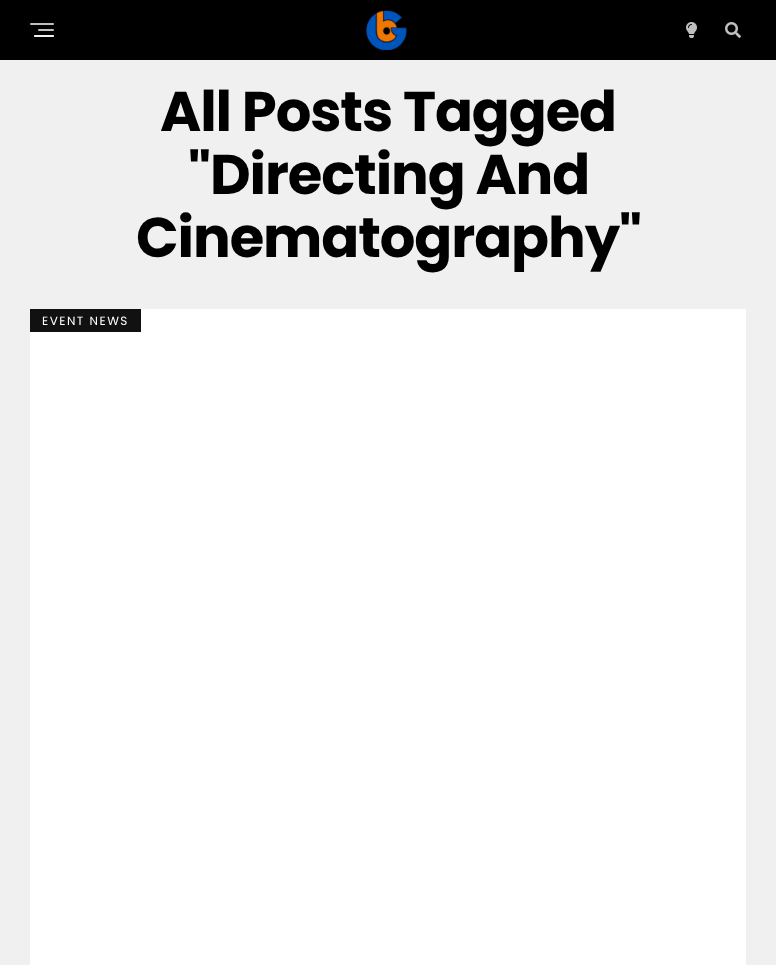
<!DOCTYPE html>
<meta charset="utf-8">
<style>body { margin: 0 } canvas { display: block }</style>
<canvas id="canvas" width="776" height="965"></canvas>
<script type="module">
  const canvas = document.getElementById("canvas");
  const g = canvas.getContext("2d");
  g.miterLimit = 4;
  g.fontKerning = "normal";
  function drawText(s, x, y, [font, color]) {
    g.font = font;
    g.fillStyle = color;
    g.fillText(s, x, y);
  }
  function fillBox(x, y, w, h, color) {
    g.fillStyle = color;
    g.fillRect(x, y, w, h);
  }
  function fillRounded(x, y, w, h, r, color) {
    g.fillStyle = color;
    g.beginPath();
    g.roundRect(x, y, w, h, r);
    g.fill();
  }
  async function drawPicture(src, x, y, w, h) {
    const img = new Image();
    img.src = src;
    await img.decode();
    g.drawImage(img, x, y, w, h);
  }

  const s1 = ["bold 56px Poppins", "#000000"];
  const s2 = ["12px Poppins", "#FFFFFF"];

  fillBox(0, 0, 776, 965, "#F0F0F0");
  fillBox(0, 0, 776, 60, "#000000");
  fillRounded(30, 23, 24, 2, 1, "#BFBFBF");
  fillRounded(38, 29, 16, 2, 1, "#BFBFBF");
  fillRounded(34, 35, 20, 2, 1, "#BFBFBF");
  fillRounded(34, 35, 20, 2, 1, "rgba(255, 255, 255, 0.75)");
  await drawPicture("pic1.png", 366, 10, 41, 40);
  await drawPicture("pic2.png", 686, 22, 11, 16);
  await drawPicture("pic3.png", 725, 22, 16, 16);
  g.letterSpacing = "-1.1px";
  drawText("All Posts Tagged", 160, 131, s1);
  drawText("\"Directing And", 188, 194, s1);
  drawText("Cinematography\"", 136, 257, s1);
  fillBox(30, 309, 716, 656, "#FFFFFF");
  fillBox(30, 309, 111, 23, "#111111");
  g.letterSpacing = "1.5px";
  drawText("EVENT NEWS", 42, 325, s2);
</script>
